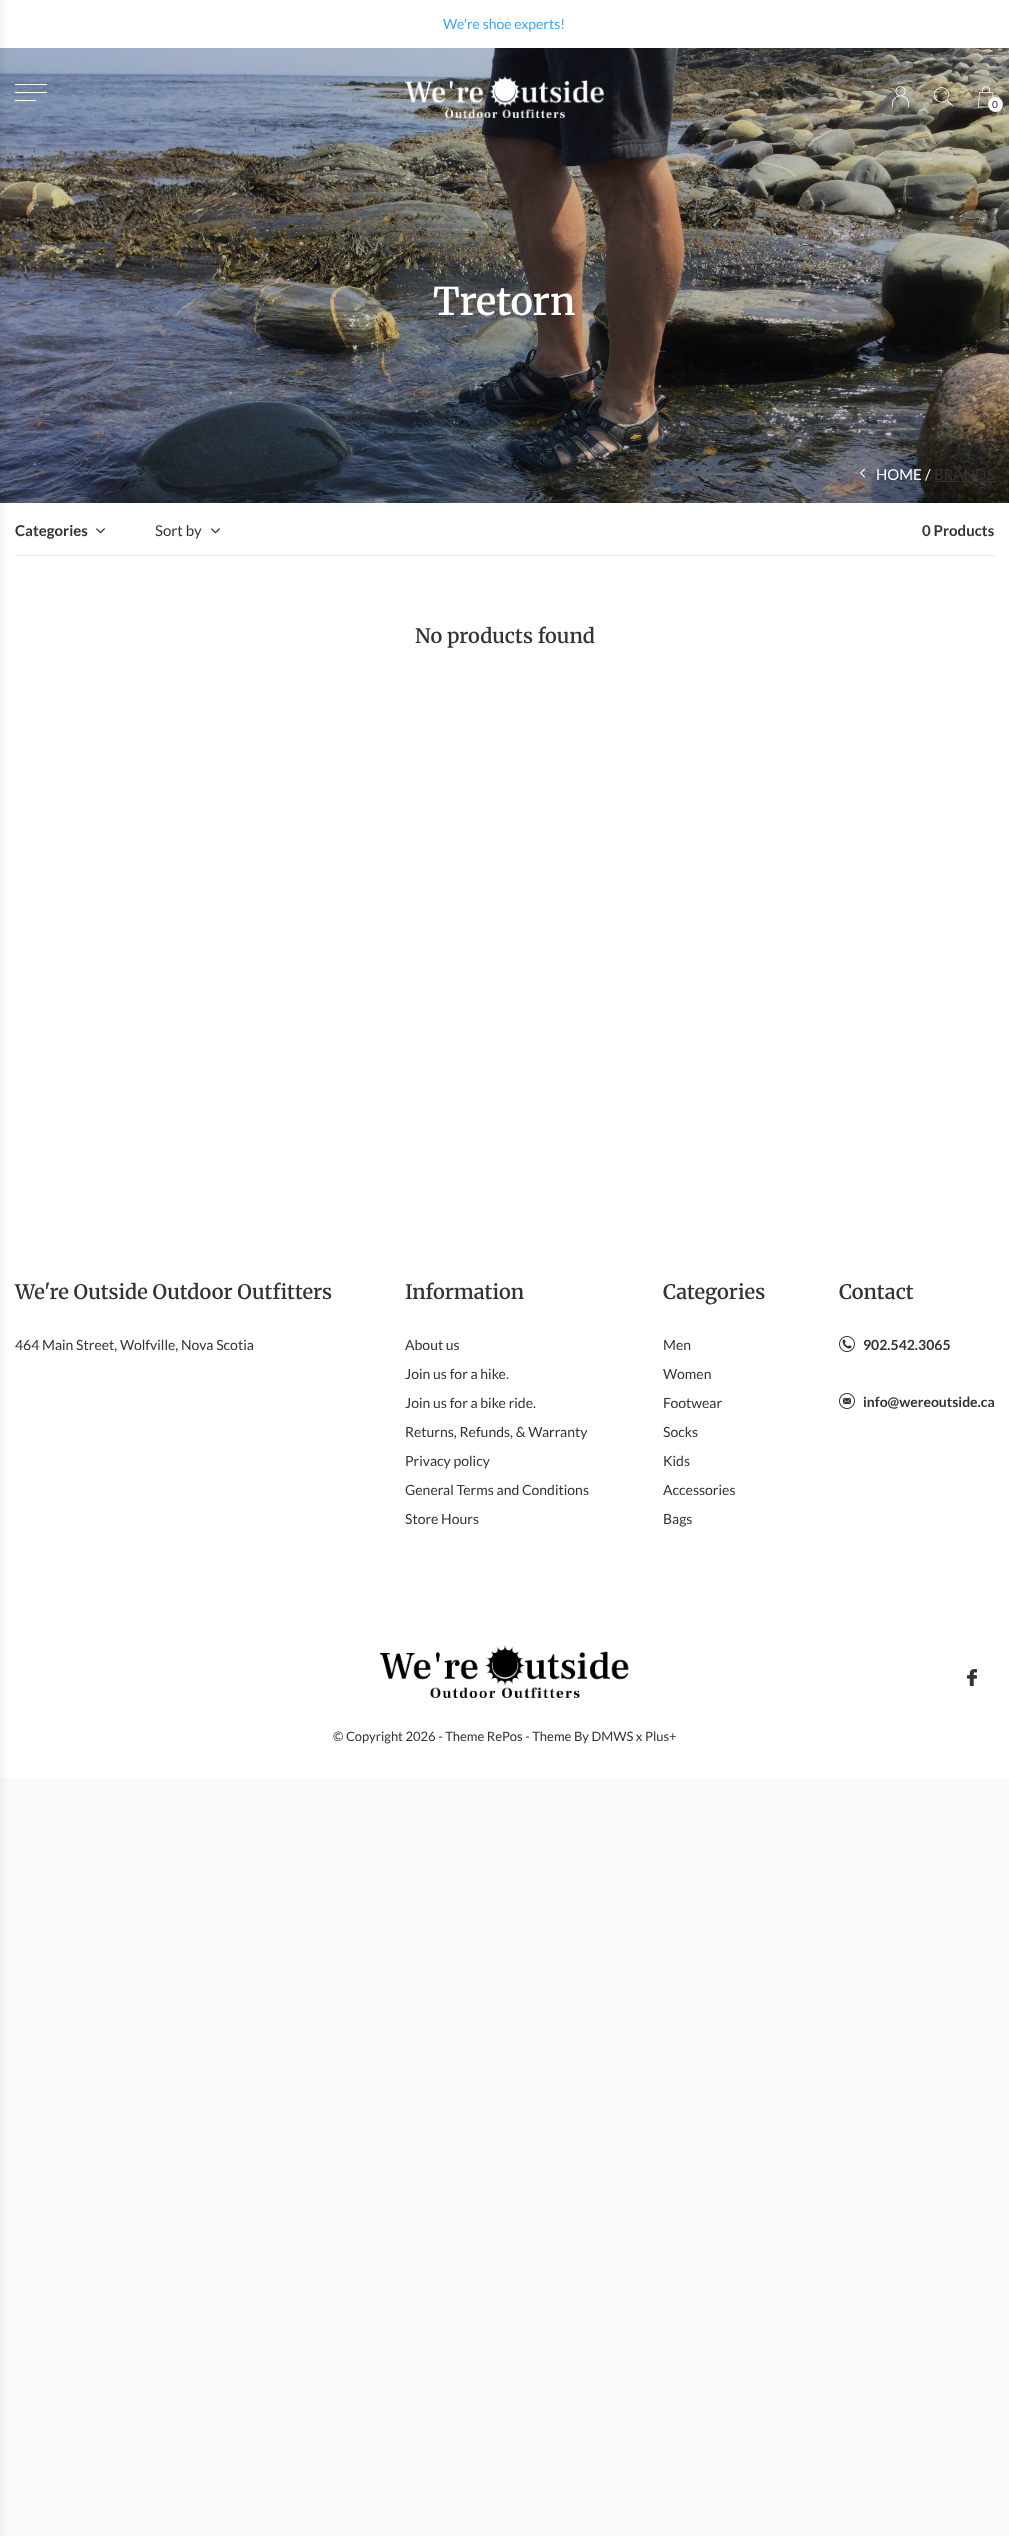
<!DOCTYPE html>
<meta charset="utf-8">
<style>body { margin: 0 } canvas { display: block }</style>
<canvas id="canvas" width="1009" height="2536"></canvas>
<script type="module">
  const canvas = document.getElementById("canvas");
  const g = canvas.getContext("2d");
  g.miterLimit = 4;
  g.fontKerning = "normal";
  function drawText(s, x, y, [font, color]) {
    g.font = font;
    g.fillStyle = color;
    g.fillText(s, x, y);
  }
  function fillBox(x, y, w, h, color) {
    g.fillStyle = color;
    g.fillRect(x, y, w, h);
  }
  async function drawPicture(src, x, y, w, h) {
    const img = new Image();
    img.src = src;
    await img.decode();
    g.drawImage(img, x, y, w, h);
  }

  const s1 = ["14px Lato", "#3BA6F3"];
  const s2 = ["10px Lato", "#333333"];
  const s3 = ["600 38px Merriweather", "#FFFFFF"];
  const s4 = ["15px Lato", "#FFFFFF"];
  const s5 = ["15px Lato", "#333333"];
  const s6 = ["bold 15px Lato", "#333333"];
  const s7 = ["600 20px Merriweather", "#333333"];
  const s8 = ["14px Lato", "#333333"];
  const s9 = ["bold 14px Lato", "#333333"];
  const s10 = ["13px Lato", "#333333"];

  fillBox(0, 0, 1009, 2536, "#FAFAFA");
  fillBox(0, 0, 1009, 1778, "#FFFFFF");
  await drawPicture("pic6.png", 0, 48, 1009, 455);
  await drawPicture("pic1.png", 15, 84, 32, 18);
  fillBox(15, 555, 980, 1, "#EAEAEA");
  g.fillStyle = "rgba(0, 0, 0, 0.1)";
  g.filter = "blur(5px)";
  g.beginPath();
  g.rect(-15, 0, 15, 2536);
  g.fill();
  g.filter = "none";
  drawText("We're shoe experts!", 443, 29, s1);
  await drawPicture("pic2.png", 405, 75, 200, 43);
  await drawPicture("pic3.png", 892, 86, 17, 22);
  await drawPicture("pic4.png", 934, 87, 19, 20);
  await drawPicture("pic5.png", 978, 86, 16, 22);
  g.fillStyle = "#FFFFFF";
  g.beginPath();
  g.arc(995.5, 104.5, 7.5, 0, Math.PI * 2);
  g.fill();
  drawText("0", 992, 108, s2);
  drawText("Tretorn", 433, 315, s3);
  await drawPicture("pic7.png", 860, 468, 5, 10);
  drawText("HOME", 876, 480, s4);
  drawText("/", 925, 480, s4);
  drawText("BRANDS", 934, 480, s5);
  fillBox(934, 481, 61, 1, "#333333");
  drawText("Categories", 15, 536, s6);
  await drawPicture("pic8.png", 96, 528, 9, 6);
  drawText("Sort by", 155, 536, s5);
  await drawPicture("pic8.png", 211, 528, 9, 6);
  drawText("0 Products", 922, 536, s6);
  drawText("No products found", 415, 643, s7);
  drawText("We're Outside Outdoor Outfitters", 15, 1299, s7);
  drawText("464 Main Street, Wolfville, Nova Scotia", 15, 1350, s8);
  drawText("Information", 405, 1299, s7);
  drawText("About us", 405, 1350, s8);
  drawText("Join us for a hike.", 405, 1379, s8);
  drawText("Join us for a bike ride.", 405, 1408, s8);
  drawText("Returns, Refunds, & Warranty", 405, 1437, s8);
  drawText("Privacy policy", 405, 1466, s8);
  drawText("General Terms and Conditions", 405, 1495, s8);
  drawText("Store Hours", 405, 1524, s8);
  drawText("Categories", 663, 1299, s7);
  drawText("Men", 663, 1350, s8);
  drawText("Women", 663, 1379, s8);
  drawText("Footwear", 663, 1408, s8);
  drawText("Socks", 663, 1437, s8);
  drawText("Kids", 663, 1466, s8);
  drawText("Accessories", 663, 1495, s8);
  drawText("Bags", 663, 1524, s8);
  drawText("Contact", 839, 1299, s7);
  await drawPicture("pic9.png", 839, 1336, 16, 16);
  drawText("902.542.3065", 863, 1350, s9);
  await drawPicture("pic10.png", 839, 1393, 16, 16);
  drawText("info@wereoutside.ca", 863, 1407, s9);
  await drawPicture("pic11.png", 967, 1669, 10, 18);
  await drawPicture("pic12.png", 380, 1645, 249, 53);
  drawText("© Copyright 2026 - Theme RePos - Theme By DMWS x Plus+", 333, 1741, s10);
</script>
